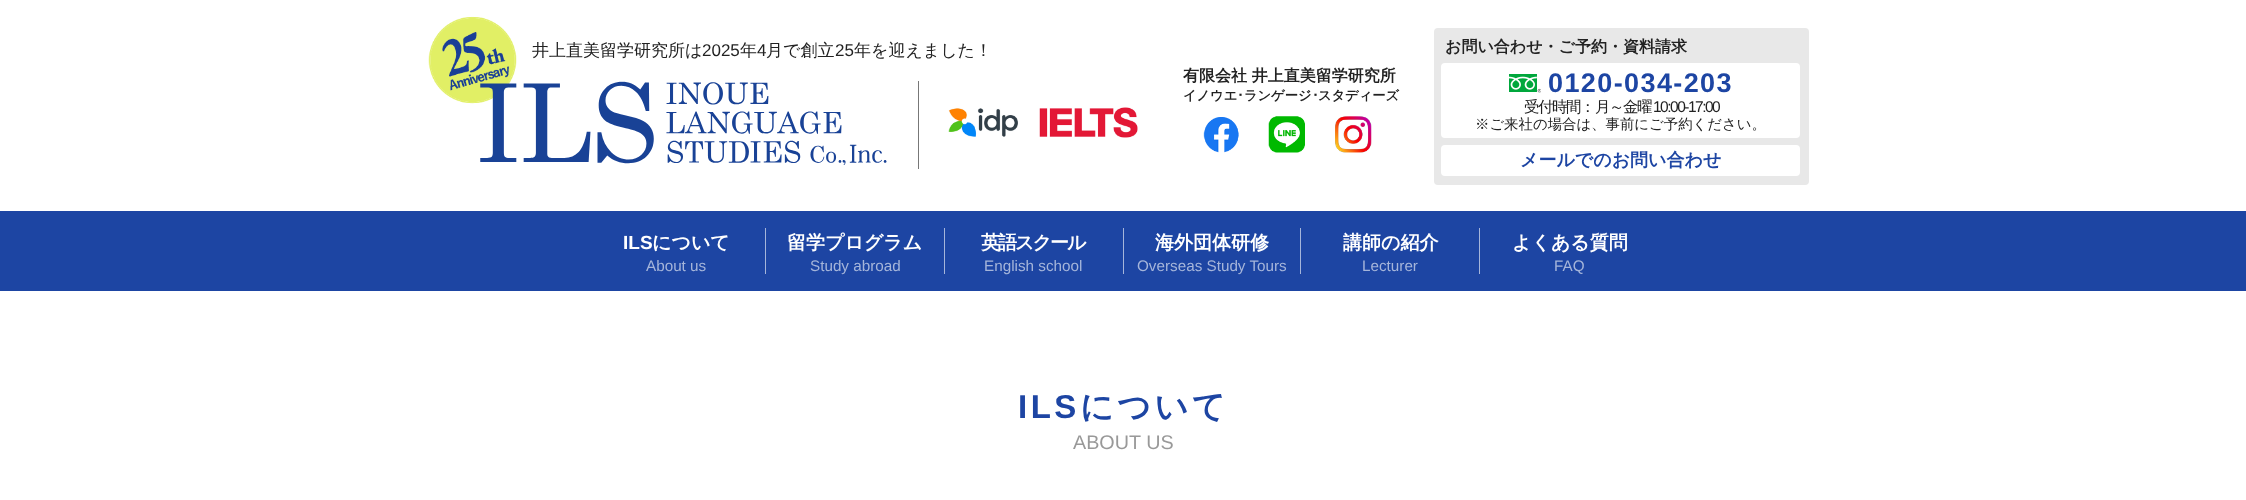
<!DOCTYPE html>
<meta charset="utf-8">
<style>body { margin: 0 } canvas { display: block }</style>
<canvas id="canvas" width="2246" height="500"></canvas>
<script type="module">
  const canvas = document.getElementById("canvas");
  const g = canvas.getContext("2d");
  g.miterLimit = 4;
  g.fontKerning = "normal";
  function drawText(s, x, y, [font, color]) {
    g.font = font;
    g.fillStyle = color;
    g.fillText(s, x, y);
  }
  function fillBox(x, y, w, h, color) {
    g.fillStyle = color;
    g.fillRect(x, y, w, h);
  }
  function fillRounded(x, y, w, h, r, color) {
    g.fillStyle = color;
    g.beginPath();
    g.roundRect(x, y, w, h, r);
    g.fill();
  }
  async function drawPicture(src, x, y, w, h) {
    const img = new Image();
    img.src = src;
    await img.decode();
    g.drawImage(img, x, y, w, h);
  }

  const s1 = ["500 17px WenQuanYi Zen Hei", "#222222"];
  const s2 = ["17px Liberation Sans", "#222222"];
  const s3 = ["bold 16px WenQuanYi Zen Hei", "#222222"];
  const s4 = ["bold 27px Liberation Sans", "#1D45A3"];
  const s5 = ["500 15.5px WenQuanYi Zen Hei", "#222222"];
  const s6 = ["15.5px Liberation Sans", "#222222"];
  const s7 = ["500 14.4px WenQuanYi Zen Hei", "#222222"];
  const s8 = ["bold 18px WenQuanYi Zen Hei", "#1D45A3"];
  const s9 = ["bold 13.25px WenQuanYi Zen Hei", "#222222"];
  const s10 = ["bold 13.25px IPAPGothic", "#222222"];
  const s11 = ["bold 19px Liberation Sans", "#FFFFFF"];
  const s12 = ["bold 19px WenQuanYi Zen Hei", "#FFFFFF"];
  const s13 = ["15.25px Liberation Sans", "#A5B5DA"];
  const s14 = ["bold 33px Liberation Sans", "#1D45A3"];
  const s15 = ["bold 33px WenQuanYi Zen Hei", "#1D45A3"];
  const s16 = ["19.75px Liberation Sans", "#999999"];

  fillBox(0, 0, 2246, 500, "#FFFFFF");
  await drawPicture("pic1.png", 428, 16, 89, 88);
  drawText("井上直美留学研究所は", 532, 56, s1);
  drawText("2025", 702, 56, s2);
  drawText("年", 740, 56, s1);
  drawText("4", 757, 56, s2);
  drawText("月で創立", 766, 56, s1);
  drawText("25", 835, 56, s2);
  drawText("年を迎えました！", 854, 56, s1);
  fillRounded(1434, 28, 375, 157, 4, "#E8E8E8");
  drawText("お問い合わせ・ご予約・資料請求", 1445, 52, s3);
  fillRounded(1441, 63, 359, 75, 4, "#FFFFFF");
  await drawPicture("pic2.png", 1509, 74, 32, 19);
  g.letterSpacing = "1.4px";
  drawText("0120-034-203", 1548, 92, s4);
  g.letterSpacing = "-1.5px";
  drawText("受付時間：", 1524, 112, s5);
  drawText("月～金曜", 1595, 112, s5);
  drawText("10:00-17:00", 1653, 112, s6);
  g.letterSpacing = "0px";
  drawText("※ご来社の場合は、事前にご予約ください。", 1475, 129, s7);
  fillRounded(1441, 145, 359, 31, 4, "#FFFFFF");
  drawText("メールでのお問い合わせ", 1520, 166, s8);
  fillBox(918, 81, 1, 88, "#777777");
  await drawPicture("pic3.png", 480, 81, 407, 84);
  await drawPicture("pic4.png", 948, 107, 190, 31);
  drawText("有限会社 井上直美留学研究所", 1183, 81, s3);
  drawText("イノウエ", 1183, 100, s9);
  drawText("･", 1237, 100, s10);
  drawText("ランゲージ", 1244, 100, s9);
  drawText("･", 1312, 100, s10);
  drawText("スタディーズ", 1318, 100, s9);
  await drawPicture("pic5.png", 1203, 117, 36, 36);
  await drawPicture("pic6.png", 1268, 116, 37, 37);
  await drawPicture("pic7.png", 1335, 116, 37, 37);
  fillBox(0, 211, 2246, 80, "#1D45A3");
  fillBox(765, 228, 1, 46, "#A5B5DA");
  drawText("ILS", 623, 249, s11);
  drawText("について", 652, 249, s12);
  drawText("About us", 646, 271, s13);
  fillBox(944, 228, 1, 46, "#A5B5DA");
  drawText("留学プログラム", 787, 249, s12);
  drawText("Study abroad", 810, 271, s13);
  fillBox(1123, 228, 1, 46, "#A5B5DA");
  g.letterSpacing = "-2px";
  drawText("英語スクール", 981, 249, s12);
  g.letterSpacing = "0px";
  drawText("English school", 984, 271, s13);
  fillBox(1300, 228, 1, 46, "#A5B5DA");
  drawText("海外団体研修", 1155, 249, s12);
  drawText("Overseas Study Tours", 1137, 271, s13);
  fillBox(1479, 228, 1, 46, "#A5B5DA");
  drawText("講師の紹介", 1343, 249, s12);
  drawText("Lecturer", 1362, 271, s13);
  drawText("よくある質問", 1512, 249, s12);
  drawText("FAQ", 1554, 271, s13);
  g.letterSpacing = "3.5px";
  drawText("ILS", 1018, 418, s14);
  drawText("について", 1080, 418, s15);
  g.letterSpacing = "0px";
  drawText("ABOUT US", 1073, 449, s16);
</script>
